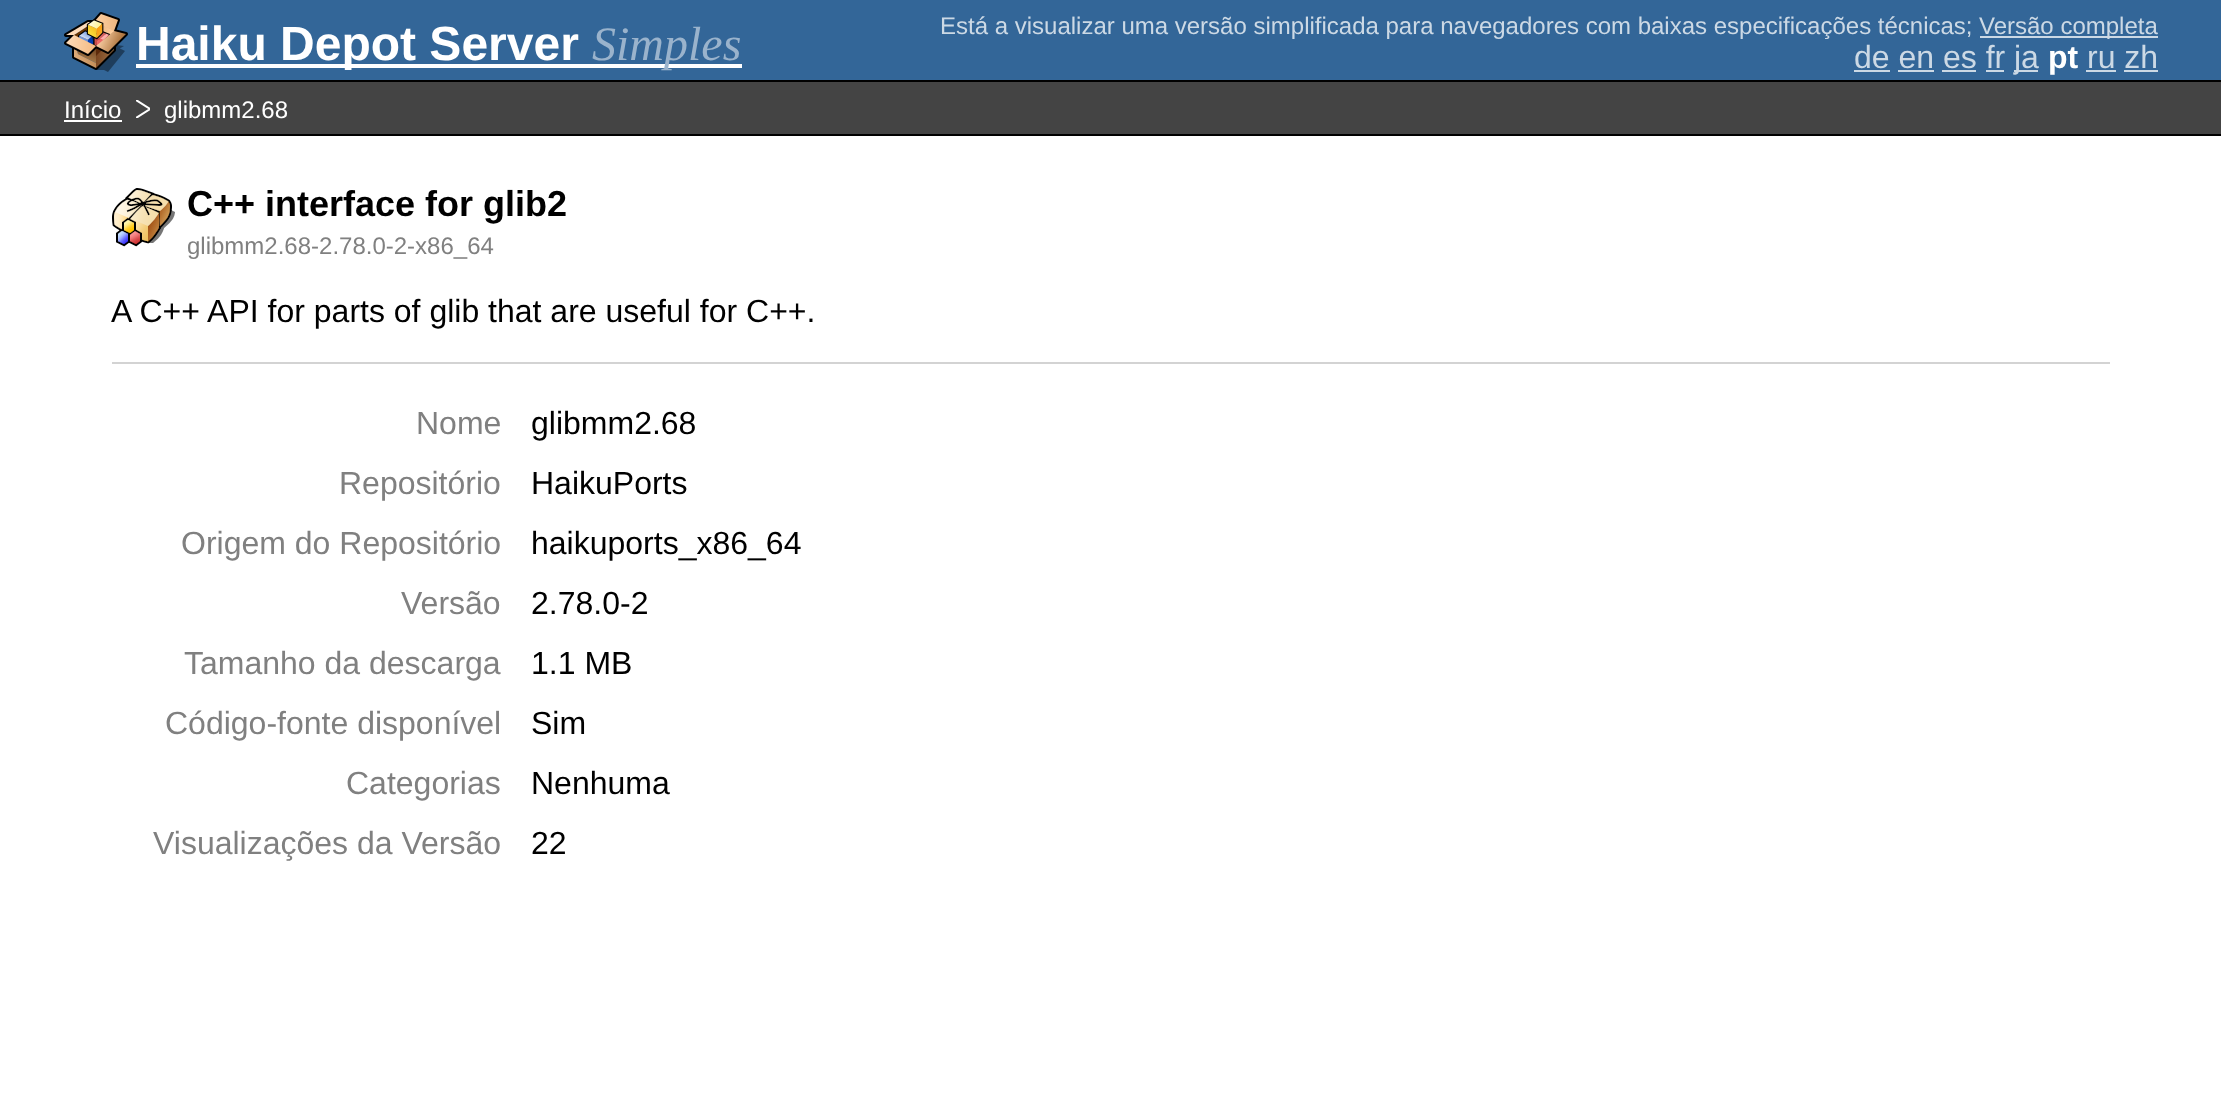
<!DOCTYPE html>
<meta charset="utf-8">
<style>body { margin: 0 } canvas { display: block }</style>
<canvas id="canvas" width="2221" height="1106"></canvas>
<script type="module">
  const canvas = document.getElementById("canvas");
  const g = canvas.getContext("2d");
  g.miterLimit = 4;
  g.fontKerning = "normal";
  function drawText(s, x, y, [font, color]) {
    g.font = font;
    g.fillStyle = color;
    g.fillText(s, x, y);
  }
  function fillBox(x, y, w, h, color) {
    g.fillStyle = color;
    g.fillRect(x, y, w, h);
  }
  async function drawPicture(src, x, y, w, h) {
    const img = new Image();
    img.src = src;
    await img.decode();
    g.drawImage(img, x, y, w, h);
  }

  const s1 = ["bold 48px Liberation Sans", "#FFFFFF"];
  const s2 = ["italic 48px Liberation Serif", "#9AB3CC"];
  const s3 = ["24px Liberation Sans", "#CCD9E5"];
  const s4 = ["32px Liberation Sans", "#CCD9E5"];
  const s5 = ["bold 32px Liberation Sans", "#FFFFFF"];
  const s6 = ["24px Liberation Sans", "#FFFFFF"];
  const s7 = ["bold 36px Liberation Sans", "#000000"];
  const s8 = ["24px Liberation Sans", "#808080"];
  const s9 = ["32px Liberation Sans", "#000000"];
  const s10 = ["32px Liberation Sans", "#808080"];

  fillBox(0, 0, 2221, 1106, "#FFFFFF");
  fillBox(0, 0, 2221, 80, "#336698");
  fillBox(0, 80, 2221, 2, "#000000");
  await drawPicture("pic1.png", 64, 12, 64, 60);
  fillBox(136, 64, 606, 4, "#FFFFFF");
  drawText("Haiku Depot Server", 136, 60, s1);
  drawText("Simples", 592, 60, s2);
  drawText("Está a visualizar uma versão simplificada para navegadores com baixas especificações técnicas;", 940, 34, s3);
  fillBox(1980, 36, 178, 2, "#CCD9E5");
  drawText("Versão completa", 1979, 34, s3);
  drawText("de en es fr", 1854, 68, s4);
  fillBox(1854, 70, 36, 2, "#CCD9E5");
  fillBox(1898, 70, 36, 2, "#CCD9E5");
  fillBox(1942, 70, 34, 2, "#CCD9E5");
  fillBox(1986, 70, 18, 2, "#CCD9E5");
  fillBox(2014, 70, 24, 2, "#CCD9E5");
  drawText("ja", 2014, 68, s4);
  drawText("pt", 2048, 68, s5);
  fillBox(2086, 70, 30, 2, "#CCD9E5");
  drawText("ru zh", 2087, 68, s4);
  fillBox(2124, 70, 34, 2, "#CCD9E5");
  fillBox(0, 82, 2221, 52, "#444444");
  fillBox(0, 134, 2221, 2, "#000000");
  drawText("Início", 64, 118, s6);
  fillBox(64, 120, 58, 2, "#FFFFFF");
  drawText("glibmm2.68", 164, 118, s6);
  g.save();
  g.beginPath();
  g.rect(136, 100, 14, 18);
  g.clip();
  g.beginPath();
  g.moveTo(136, 118);
  g.lineTo(150, 109);
  g.lineTo(136, 100);
  g.strokeStyle = "#FFFFFF";
  g.lineWidth = 2;
  g.stroke();
  g.restore();
  await drawPicture("pic2.png", 112, 188, 63, 59);
  drawText("C++ interface for glib2", 187, 216, s7);
  drawText("glibmm2.68-2.78.0-2-x86_64", 187, 254, s8);
  drawText("A C++ API for parts of glib that are useful for C++.", 111, 322, s9);
  fillBox(112, 362, 1998, 2, "#D3D3D3");
  drawText("Nome", 416, 434, s10);
  drawText("glibmm2.68", 531, 434, s9);
  drawText("Repositório", 339, 494, s10);
  drawText("HaikuPorts", 531, 494, s9);
  drawText("Origem do Repositório", 181, 554, s10);
  drawText("haikuports_x86_64", 531, 554, s9);
  drawText("Versão", 401, 614, s10);
  drawText("2.78.0-2", 531, 614, s9);
  drawText("Tamanho da descarga", 184, 674, s10);
  drawText("1.1 MB", 531, 674, s9);
  drawText("Código-fonte disponível", 165, 734, s10);
  drawText("Sim", 531, 734, s9);
  drawText("Categorias", 346, 794, s10);
  drawText("Nenhuma", 531, 794, s9);
  drawText("Visualizações da Versão", 153, 854, s10);
  drawText("22", 531, 854, s9);
</script>
